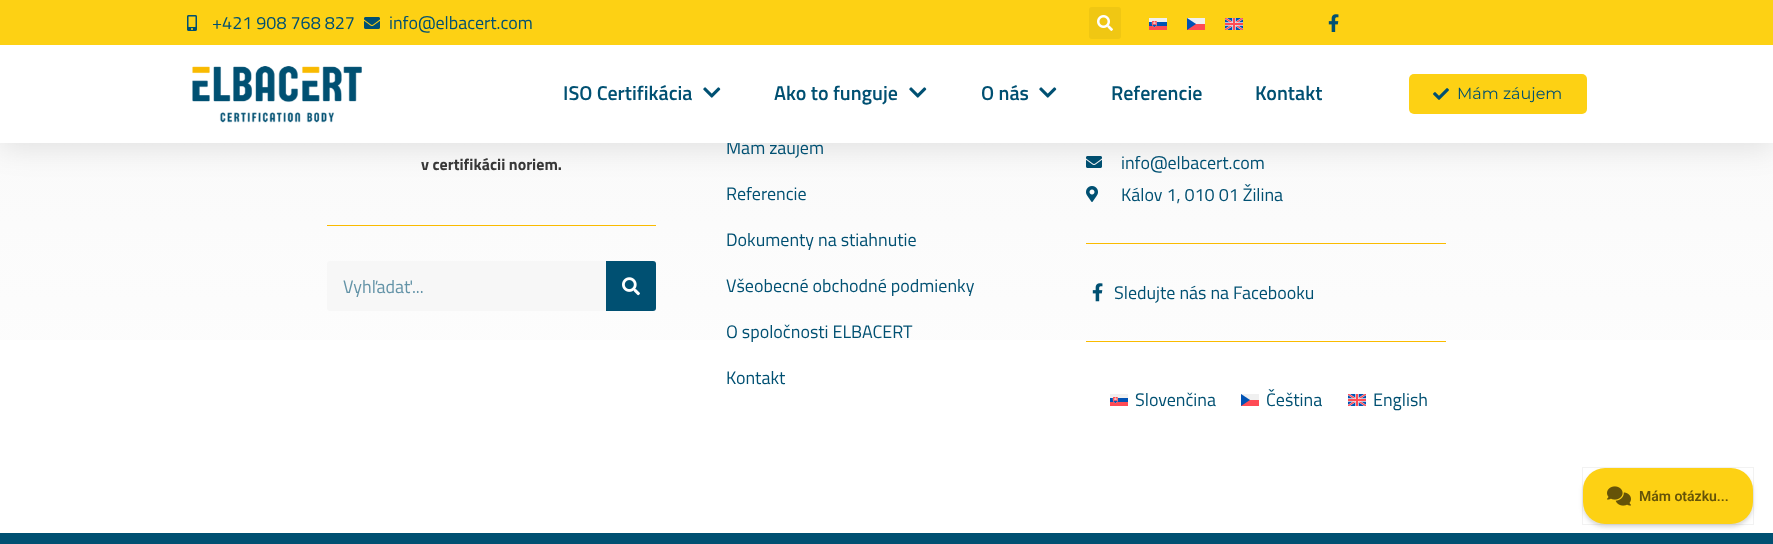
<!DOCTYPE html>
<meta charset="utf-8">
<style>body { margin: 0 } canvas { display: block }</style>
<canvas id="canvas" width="1773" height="544"></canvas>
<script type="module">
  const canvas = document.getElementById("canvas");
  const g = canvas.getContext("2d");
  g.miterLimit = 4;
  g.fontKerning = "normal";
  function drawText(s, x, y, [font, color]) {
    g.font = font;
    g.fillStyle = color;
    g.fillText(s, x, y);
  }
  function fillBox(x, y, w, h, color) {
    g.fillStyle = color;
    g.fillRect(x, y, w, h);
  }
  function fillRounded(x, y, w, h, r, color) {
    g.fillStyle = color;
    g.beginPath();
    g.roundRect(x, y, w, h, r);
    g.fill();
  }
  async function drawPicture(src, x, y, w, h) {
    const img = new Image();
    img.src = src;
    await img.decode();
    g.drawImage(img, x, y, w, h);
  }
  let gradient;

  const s1 = ["18px Titillium Web", "#005072"];
  const s2 = ["600 20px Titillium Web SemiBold", "#005072"];
  const s3 = ["16px Montserrat", "#005072"];
  const s4 = ["bold 16px Titillium Web", "#383838"];
  const s5 = ["18px Titillium Web", "#6393A7"];
  const s6 = ["600 14px Roboto", "#655308"];

  fillBox(0, 0, 1773, 544, "#FFFFFF");
  gradient = g.createLinearGradient(887, -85, 887, 533);
  gradient.addColorStop(0, "#F7F7F7");
  gradient.addColorStop(1, "#FFFFFF");
  g.fillStyle = gradient;
  g.fillRect(0, 143, 1773, 197);
  await drawPicture("pic12.png", 1086, 156, 16, 12);
  await drawPicture("pic13.png", 1086, 186, 12, 16);
  g.fillStyle = "rgba(0, 0, 0, 0.1)";
  g.filter = "blur(15px)";
  g.beginPath();
  g.rect(0, 5, 1773, 143);
  g.fill();
  g.filter = "none";
  fillBox(0, 0, 1773, 45, "#FDD114");
  await drawPicture("pic1.png", 187, 15, 10, 16);
  drawText("+421 908 768 827", 212, 29, s1);
  await drawPicture("pic2.png", 364, 17, 16, 12);
  drawText("info@elbacert.com", 389, 29, s1);
  fillRounded(1089, 7, 32, 32, 3, "#F0C713");
  await drawPicture("pic3.png", 1097, 15, 16, 16);
  await drawPicture("pic4.png", 1149, 18, 18, 12);
  await drawPicture("pic5.png", 1187, 18, 18, 12);
  await drawPicture("pic6.png", 1225, 18, 18, 12);
  await drawPicture("pic7.png", 1328, 14, 11, 18);
  drawText("Mám záujem", 726, 154, s1);
  fillBox(0, 45, 1773, 98, "#FFFFFF");
  await drawPicture("pic8.png", 192, 66, 170, 57);
  drawText("ISO Certifikácia", 563, 100, s2);
  await drawPicture("pic9.png", 703, 87, 18, 11);
  drawText("Ako to funguje", 774, 100, s2);
  await drawPicture("pic9.png", 909, 87, 18, 11);
  drawText("O nás", 981, 100, s2);
  await drawPicture("pic9.png", 1039, 87, 18, 11);
  drawText("Referencie", 1111, 100, s2);
  drawText("Kontakt", 1255, 100, s2);
  fillRounded(1409, 74, 178, 40, 5, "#FDD114");
  await drawPicture("pic10.png", 1433, 88, 16, 12);
  drawText("Mám záujem", 1457, 99, s3);
  drawText("v certifikácii noriem.", 421, 170, s4);
  fillBox(327, 225, 329, 1, "#FABB00");
  fillRounded(327, 261, 329, 50, 3, "#F7F7F7");
  drawText("Vyhľadať...", 343, 293, s5);
  g.fillStyle = "#005072";
  g.beginPath();
  g.roundRect(606, 261, 50, 50, [0, 3, 3, 0]);
  g.fill();
  await drawPicture("pic11.png", 622, 277, 18, 19);
  drawText("Referencie", 726, 200, s1);
  drawText("Dokumenty na stiahnutie", 726, 246, s1);
  drawText("Všeobecné obchodné podmienky", 726, 292, s1);
  drawText("O spoločnosti ELBACERT", 726, 338, s1);
  drawText("Kontakt", 726, 384, s1);
  drawText("info@elbacert.com", 1121, 169, s1);
  drawText("Kálov 1, 010 01 Žilina", 1121, 201, s1);
  fillBox(1086, 243, 360, 1, "#FABB00");
  await drawPicture("pic14.png", 1092, 283, 11, 19);
  drawText("Sledujte nás na Facebooku", 1114, 299, s1);
  fillBox(1086, 341, 360, 1, "#FABB00");
  await drawPicture("pic4.png", 1110, 394, 18, 12);
  drawText("Slovenčina", 1135, 406, s1);
  await drawPicture("pic5.png", 1241, 394, 18, 12);
  drawText("Čeština", 1266, 406, s1);
  await drawPicture("pic6.png", 1348, 394, 18, 12);
  drawText("English", 1373, 406, s1);
  fillBox(0, 533, 1773, 11, "#005072");
  g.fillStyle = "rgba(0, 0, 0, 0.05)";
  g.filter = "blur(1.5px)";
  g.beginPath();
  g.roundRect(1583, 471, 170, 56, 22);
  g.fill();
  g.filter = "none";
  g.fillStyle = "rgba(0, 0, 0, 0.1)";
  g.filter = "blur(2.5px)";
  g.beginPath();
  g.roundRect(1583, 471, 170, 56, 22);
  g.fill();
  g.filter = "none";
  g.strokeStyle = "rgba(0, 0, 0, 0.05)";
  g.strokeRect(1582.5, 467.5, 171, 57);
  fillRounded(1583, 468, 170, 56, 22, "#FDD114");
  await drawPicture("pic15.png", 1607, 486, 24, 20);
  drawText("Mám otázku...", 1639, 501, s6);
</script>
